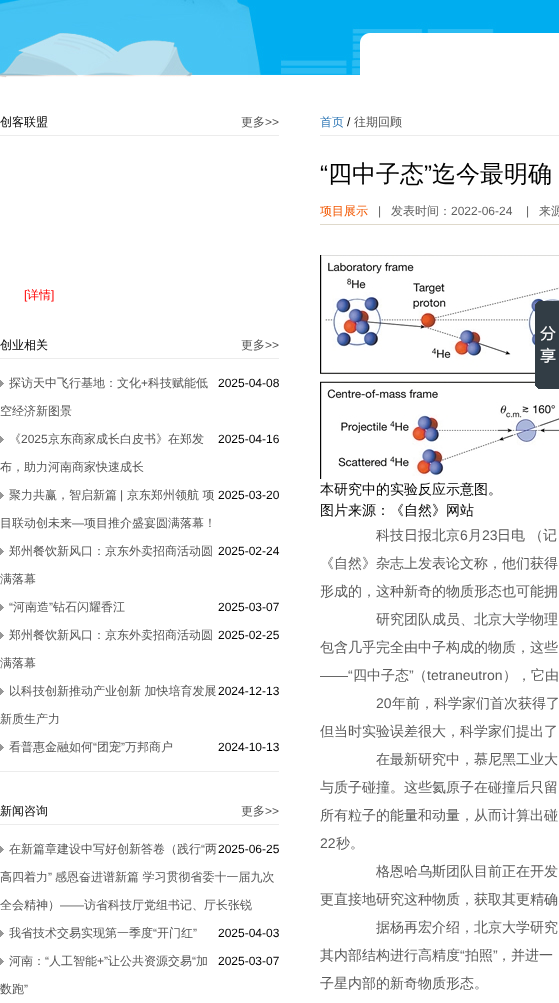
<!DOCTYPE html>
<meta charset="utf-8">
<style>body { margin: 0 } canvas { display: block }</style>
<canvas id="canvas" width="559" height="1003"></canvas>
<script type="module">
  const canvas = document.getElementById("canvas");
  const g = canvas.getContext("2d");
  g.miterLimit = 4;
  g.fontKerning = "normal";
  function drawText(s, x, y, [font, color]) {
    g.font = font;
    g.fillStyle = color;
    g.fillText(s, x, y);
  }
  function fillBox(x, y, w, h, color) {
    g.fillStyle = color;
    g.fillRect(x, y, w, h);
  }
  async function drawPicture(src, x, y, w, h) {
    const img = new Image();
    img.src = src;
    await img.decode();
    g.drawImage(img, x, y, w, h);
  }

  const s1 = ["500 12px WenQuanYi Zen Hei", "#000000"];
  const s2 = ["500 12px WenQuanYi Zen Hei", "#555555"];
  const s3 = ["12px Liberation Sans", "#555555"];
  const s4 = ["12px Liberation Sans", "#FF0000"];
  const s5 = ["500 12px WenQuanYi Zen Hei", "#FF0000"];
  const s6 = ["12px Liberation Sans", "#000000"];
  const s7 = ["500 12px WenQuanYi Zen Hei", "#337AB7"];
  const s8 = ["24px Liberation Sans", "#000000"];
  const s9 = ["500 24px WenQuanYi Zen Hei", "#000000"];
  const s10 = ["500 12px WenQuanYi Zen Hei", "#F25802"];
  const s11 = ["12px Liberation Sans", "#616161"];
  const s12 = ["500 12px WenQuanYi Zen Hei", "#616161"];
  const s13 = ["500 14px WenQuanYi Zen Hei", "#000000"];
  const s14 = ["500 14px WenQuanYi Zen Hei", "#5B5B5B"];
  const s15 = ["14px Liberation Sans", "#5B5B5B"];

  fillBox(0, 0, 559, 1003, "#FFFFFF");
  await drawPicture("pic1.png", 0, 0, 559, 78);
  fillBox(0, 135, 279, 1, "#ECECEC");
  drawText("创客联盟", 0, 126, s1);
  drawText("更多", 241, 126, s2);
  drawText(">>", 265, 126, s3);
  drawText("[", 24, 299, s4);
  drawText("详情", 27, 299, s5);
  drawText("]", 51, 299, s4);
  fillBox(0, 358, 279, 1, "#ECECEC");
  drawText("创业相关", 0, 349, s1);
  drawText("更多", 241, 349, s2);
  drawText(">>", 265, 349, s3);
  fillBox(0, 771, 279, 1, "#ECECEC");
  await drawPicture("pic2.png", 0, 380, 4, 7);
  drawText("探访天中飞行基地：文化", 9, 387, s2);
  drawText("+", 141, 387, s3);
  drawText("科技赋能低", 148, 387, s2);
  drawText("2025-04-08", 218, 387, s6);
  drawText("空经济新图景", 0, 415, s2);
  await drawPicture("pic2.png", 0, 436, 4, 7);
  drawText("《", 9, 443, s2);
  drawText("2025", 21, 443, s3);
  drawText("京东商家成长白皮书》在郑发", 48, 443, s2);
  drawText("2025-04-16", 218, 443, s6);
  drawText("布，助力河南商家快速成长", 0, 471, s2);
  await drawPicture("pic2.png", 0, 492, 4, 7);
  drawText("聚力共赢，智启新篇", 9, 499, s2);
  drawText("|", 120, 499, s3);
  drawText("京东郑州领航 项", 127, 499, s2);
  drawText("2025-03-20", 218, 499, s6);
  drawText("目联动创未来", 0, 527, s2);
  drawText("—", 72, 527, s3);
  drawText("项目推介盛宴圆满落幕！", 84, 527, s2);
  await drawPicture("pic2.png", 0, 548, 4, 7);
  drawText("郑州餐饮新风口：京东外卖招商活动圆", 9, 555, s2);
  drawText("2025-02-24", 218, 555, s6);
  drawText("满落幕", 0, 583, s2);
  await drawPicture("pic2.png", 0, 604, 4, 7);
  drawText("“", 9, 611, s3);
  drawText("河南造", 13, 611, s2);
  drawText("”", 49, 611, s3);
  drawText("钻石闪耀香江", 53, 611, s2);
  drawText("2025-03-07", 218, 611, s6);
  await drawPicture("pic2.png", 0, 632, 4, 7);
  drawText("郑州餐饮新风口：京东外卖招商活动圆", 9, 639, s2);
  drawText("2025-02-25", 218, 639, s6);
  drawText("满落幕", 0, 667, s2);
  await drawPicture("pic2.png", 0, 688, 4, 7);
  drawText("以科技创新推动产业创新 加快培育发展", 9, 695, s2);
  drawText("2024-12-13", 218, 695, s6);
  drawText("新质生产力", 0, 723, s2);
  await drawPicture("pic2.png", 0, 744, 4, 7);
  drawText("看普惠金融如何", 9, 751, s2);
  drawText("“", 93, 751, s3);
  drawText("团宠", 97, 751, s2);
  drawText("”", 121, 751, s3);
  drawText("万邦商户", 125, 751, s2);
  drawText("2024-10-13", 218, 751, s6);
  fillBox(0, 824, 279, 1, "#ECECEC");
  drawText("新闻咨询", 0, 815, s1);
  drawText("更多", 241, 815, s2);
  drawText(">>", 265, 815, s3);
  await drawPicture("pic2.png", 0, 846, 4, 7);
  drawText("在新篇章建设中写好创新答卷（践行", 9, 853, s2);
  drawText("“", 201, 853, s3);
  drawText("两", 205, 853, s2);
  drawText("2025-06-25", 218, 853, s6);
  drawText("高四着力", 0, 881, s2);
  drawText("”", 48, 881, s3);
  drawText("感恩奋进谱新篇 学习贯彻省委十一届九次", 55, 881, s2);
  drawText("全会精神）", 0, 909, s2);
  drawText("——", 60, 909, s3);
  drawText("访省科技厅党组书记、厅长张锐", 84, 909, s2);
  await drawPicture("pic2.png", 0, 930, 4, 7);
  drawText("我省技术交易实现第一季度", 9, 937, s2);
  drawText("“", 153, 937, s3);
  drawText("开门红", 157, 937, s2);
  drawText("”", 193, 937, s3);
  drawText("2025-04-03", 218, 937, s6);
  await drawPicture("pic2.png", 0, 958, 4, 7);
  drawText("河南：", 9, 965, s2);
  drawText("“", 45, 965, s3);
  drawText("人工智能", 49, 965, s2);
  drawText("+”", 97, 965, s3);
  drawText("让公共资源交易", 108, 965, s2);
  drawText("“", 192, 965, s3);
  drawText("加", 196, 965, s2);
  drawText("2025-03-07", 218, 965, s6);
  drawText("数跑", 0, 993, s2);
  drawText("”", 24, 993, s3);
  fillBox(320, 135, 239, 1, "#ECECEC");
  drawText("首页", 320, 126, s7);
  drawText("/", 347, 126, s6);
  drawText("往期回顾", 354, 126, s2);
  drawText("“", 320, 182, s8);
  drawText("四中子态", 328, 182, s9);
  drawText("”", 424, 182, s8);
  drawText("迄今最明确", 432, 182, s9);
  fillBox(320, 224, 239, 1, "#DFD9CB");
  drawText("项目展示", 320, 215, s10);
  drawText("|", 378, 215, s11);
  drawText("发表时间：", 391, 215, s12);
  drawText("2022-06-24", 451, 215, s11);
  drawText("|", 526, 215, s11);
  drawText("来源", 539, 215, s12);
  await drawPicture("pic3.png", 320, 255, 239, 224);
  drawText("本研究中的实验反应示意图。", 320, 494, s13);
  drawText("图片来源：《自然》网站", 320, 515, s13);
  drawText("科技日报北京", 376, 540, s14);
  drawText("6", 460, 540, s15);
  drawText("月", 468, 540, s14);
  drawText("23", 482, 540, s15);
  drawText("日电", 497, 540, s14);
  drawText("（记", 529, 540, s14);
  drawText("《自然》杂志上发表论文称，他们获得", 320, 568, s14);
  drawText("形成的，这种新奇的物质形态也可能拥", 320, 596, s14);
  drawText("研究团队成员、北京大学物理", 376, 624, s14);
  drawText("包含几乎完全由中子构成的物质，这些", 320, 652, s14);
  drawText("——“", 320, 680, s15);
  drawText("四中子态", 353, 680, s14);
  drawText("”", 409, 680, s15);
  drawText("（", 413, 680, s14);
  drawText("tetraneutron", 427, 680, s15);
  drawText("），它由", 503, 680, s14);
  drawText("20", 376, 708, s15);
  drawText("年前，科学家们首次获得了", 392, 708, s14);
  drawText("但当时实验误差很大，科学家们提出了", 320, 736, s14);
  drawText("在最新研究中，慕尼黑工业大", 376, 764, s14);
  drawText("与质子碰撞。这些氦原子在碰撞后只留", 320, 792, s14);
  drawText("所有粒子的能量和动量，从而计算出碰", 320, 820, s14);
  drawText("22", 320, 848, s15);
  drawText("秒。", 336, 848, s14);
  drawText("格恩哈乌斯团队目前正在开发", 376, 876, s14);
  drawText("更直接地研究这种物质，获取其更精确", 320, 904, s14);
  drawText("据杨再宏介绍，北京大学研究", 376, 932, s14);
  drawText("其内部结构进行高精度", 320, 960, s14);
  drawText("“", 460, 960, s15);
  drawText("拍照", 465, 960, s14);
  drawText("”", 493, 960, s15);
  drawText("，并进一", 497, 960, s14);
  drawText("子星内部的新奇物质形态。", 320, 988, s14);
  await drawPicture("pic4.png", 535, 301, 24, 88);
</script>
